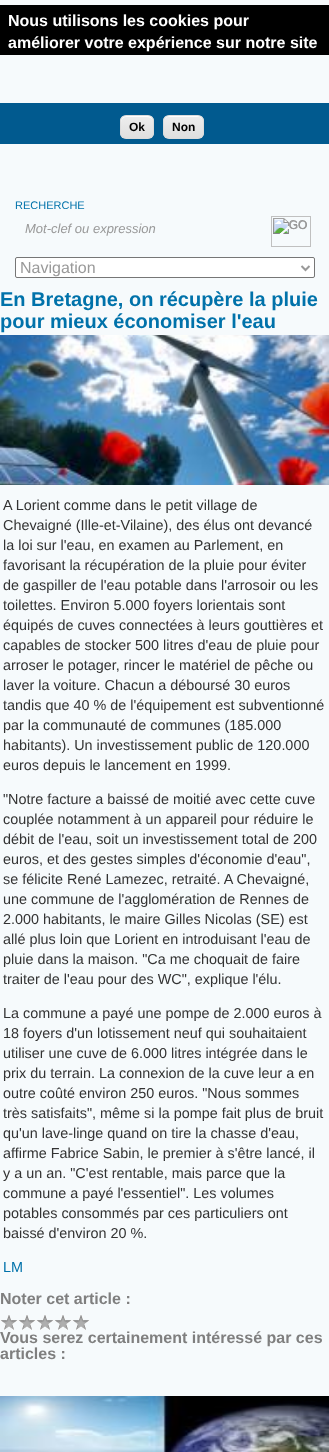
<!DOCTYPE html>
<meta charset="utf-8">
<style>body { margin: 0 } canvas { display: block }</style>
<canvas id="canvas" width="329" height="1452"></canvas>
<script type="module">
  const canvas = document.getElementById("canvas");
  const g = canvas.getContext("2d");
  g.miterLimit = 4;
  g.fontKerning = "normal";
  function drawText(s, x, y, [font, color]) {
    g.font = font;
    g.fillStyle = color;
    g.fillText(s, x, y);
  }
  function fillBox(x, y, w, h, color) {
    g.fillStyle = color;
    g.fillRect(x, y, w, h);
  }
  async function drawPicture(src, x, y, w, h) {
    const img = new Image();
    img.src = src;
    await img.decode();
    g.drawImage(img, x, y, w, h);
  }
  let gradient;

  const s1 = ["bold 16px Liberation Sans", "#FFFFFF"];
  const s2 = ["bold 12px Liberation Sans", "#000000"];
  const s3 = ["11px Liberation Sans", "#0072AA"];
  const s4 = ["italic 13px Liberation Sans", "#999999"];
  const s5 = ["12px Liberation Sans", "#999999"];
  const s6 = ["16px Liberation Sans", "#999999"];
  const s7 = ["bold 20px Liberation Sans", "#0072AA"];
  const s8 = ["14.4px Liberation Sans", "#333333"];
  const s9 = ["14.4px Liberation Sans", "#0072AA"];
  const s10 = ["bold 16px Liberation Sans", "#7F7F7F"];

  fillBox(0, 0, 329, 1452, "#F6FAFC");
  fillBox(0, 5, 329, 50, "#000000");
  drawText("Nous utilisons les cookies pour", 8, 26, s1);
  drawText("améliorer votre expérience sur notre site", 8, 48, s1);
  fillBox(0, 103, 329, 41, "#015A8F");
  g.save();
  g.beginPath();
  g.roundRect(120, 115, 34, 24, 6);
  g.clip();
  gradient = g.createLinearGradient(121, 116, 121, 138);
  gradient.addColorStop(0.05, "#EDEDED");
  gradient.addColorStop(1, "#DFDFDF");
  g.fillStyle = gradient;
  g.fillRect(120, 116, 34, 22);
  g.restore();
  g.fillStyle = "#FFFFFF";
  g.beginPath();
  g.moveTo(126, 117);
  g.lineTo(144, 117);
  g.bezierCurveTo(151.5, 117, 153, 118.5, 153, 123);
  g.bezierCurveTo(153, 116, 150.5, 116, 144.5, 116);
  g.lineTo(129.5, 116);
  g.bezierCurveTo(122.5, 116, 121, 116.5, 121, 124);
  g.bezierCurveTo(121, 121, 122, 117, 126, 117);
  g.closePath();
  g.fill();
  g.beginPath();
  g.roundRect(120.5, 115.5, 33, 23, 5.5);
  g.strokeStyle = "#DCDCDC";
  g.stroke();
  drawText("Ok", 129, 131, s2);
  g.save();
  g.beginPath();
  g.roundRect(163, 115, 41, 24, 6);
  g.clip();
  gradient = g.createLinearGradient(164, 116, 164, 138);
  gradient.addColorStop(0.05, "#EDEDED");
  gradient.addColorStop(1, "#DFDFDF");
  g.fillStyle = gradient;
  g.fillRect(163, 116, 41, 22);
  g.restore();
  g.fillStyle = "#FFFFFF";
  g.beginPath();
  g.moveTo(169, 117);
  g.lineTo(198, 117);
  g.bezierCurveTo(201, 117, 203, 119, 203, 122);
  g.bezierCurveTo(203, 115.5, 198.5, 116, 193, 116);
  g.lineTo(174, 116);
  g.bezierCurveTo(168.5, 116, 164, 115.5, 164, 122);
  g.bezierCurveTo(164, 119, 166, 117, 169, 117);
  g.closePath();
  g.fill();
  g.beginPath();
  g.roundRect(163.5, 115.5, 40, 23, 5.5);
  g.stroke();
  drawText("Non", 172, 131, s2);
  drawText("RECHERCHE", 15, 209, s3);
  drawText("Mot-clef ou expression", 25, 233, s4);
  await drawPicture("pic1.png", 271, 216, 40, 31);
  drawText("GO", 289, 229, s5);
  g.fillStyle = "#FFFFFF";
  g.beginPath();
  g.roundRect(15.5, 257.5, 299, 20, 1.5);
  g.fill();
  g.strokeStyle = "#767676";
  g.stroke();
  g.beginPath();
  g.moveTo(301.5, 266);
  g.lineTo(305.5, 270);
  g.lineTo(309.5, 266);
  g.strokeStyle = "#999999";
  g.lineWidth = 2;
  g.stroke();
  drawText("Navigation", 20, 273, s6);
  drawText("En Bretagne, on récupère la pluie", 0, 306, s7);
  drawText("pour mieux économiser l'eau", 0, 328, s7);
  await drawPicture("pic2.png", 0, 335, 329, 150);
  drawText("A Lorient comme dans le petit village de", 3, 510, s8);
  drawText("Chevaigné (Ille-et-Vilaine), des élus ont devancé", 3, 530, s8);
  drawText("la loi sur l'eau, en examen au Parlement, en", 3, 550, s8);
  drawText("favorisant la récupération de la pluie pour éviter", 3, 570, s8);
  drawText("de gaspiller de l'eau potable dans l'arrosoir ou les", 3, 590, s8);
  drawText("toilettes. Environ 5.000 foyers lorientais sont", 3, 610, s8);
  drawText("équipés de cuves connectées à leurs gouttières et", 3, 630, s8);
  drawText("capables de stocker 500 litres d'eau de pluie pour", 3, 650, s8);
  drawText("arroser le potager, rincer le matériel de pêche ou", 3, 670, s8);
  drawText("laver la voiture. Chacun a déboursé 30 euros", 3, 690, s8);
  drawText("tandis que 40 % de l'équipement est subventionné", 3, 710, s8);
  drawText("par la communauté de communes (185.000", 3, 730, s8);
  drawText("habitants). Un investissement public de 120.000", 3, 750, s8);
  drawText("euros depuis le lancement en 1999.", 3, 770, s8);
  drawText("\"Notre facture a baissé de moitié avec cette cuve", 3, 804, s8);
  drawText("couplée notamment à un appareil pour réduire le", 3, 824, s8);
  drawText("débit de l'eau, soit un investissement total de 200", 3, 844, s8);
  drawText("euros, et des gestes simples d'économie d'eau\",", 3, 864, s8);
  drawText("se félicite René Lamezec, retraité. A Chevaigné,", 3, 884, s8);
  drawText("une commune de l'agglomération de Rennes de", 3, 904, s8);
  drawText("2.000 habitants, le maire Gilles Nicolas (SE) est", 3, 924, s8);
  drawText("allé plus loin que Lorient en introduisant l'eau de", 3, 944, s8);
  drawText("pluie dans la maison. \"Ca me choquait de faire", 3, 964, s8);
  drawText("traiter de l'eau pour des WC\", explique l'élu.", 3, 984, s8);
  drawText("La commune a payé une pompe de 2.000 euros à", 3, 1018, s8);
  drawText("18 foyers d'un lotissement neuf qui souhaitaient", 3, 1038, s8);
  drawText("utiliser une cuve de 6.000 litres intégrée dans le", 3, 1058, s8);
  drawText("prix du terrain. La connexion de la cuve leur a en", 3, 1078, s8);
  drawText("outre coûté environ 250 euros. \"Nous sommes", 3, 1098, s8);
  drawText("très satisfaits\", même si la pompe fait plus de bruit", 3, 1118, s8);
  drawText("qu'un lave-linge quand on tire la chasse d'eau,", 3, 1138, s8);
  drawText("affirme Fabrice Sabin, le premier à s'être lancé, il", 3, 1158, s8);
  drawText("y a un an. \"C'est rentable, mais parce que la", 3, 1178, s8);
  drawText("commune a payé l'essentiel\". Les volumes", 3, 1198, s8);
  drawText("potables consommés par ces particuliers ont", 3, 1218, s8);
  drawText("baissé d'environ 20 %.", 3, 1238, s8);
  drawText("LM", 3, 1272, s9);
  drawText("Noter cet article :", 0, 1304, s10);
  await drawPicture("pic3.png", 0, 1315, 18, 15);
  await drawPicture("pic3.png", 18, 1315, 18, 15);
  await drawPicture("pic3.png", 36, 1315, 18, 15);
  await drawPicture("pic3.png", 54, 1315, 18, 15);
  await drawPicture("pic3.png", 72, 1315, 18, 15);
  drawText("Vous serez certainement intéressé par ces", 0, 1343, s10);
  drawText("articles :", 0, 1359, s10);
  await drawPicture("pic4.png", 0, 1396, 329, 56);
</script>
